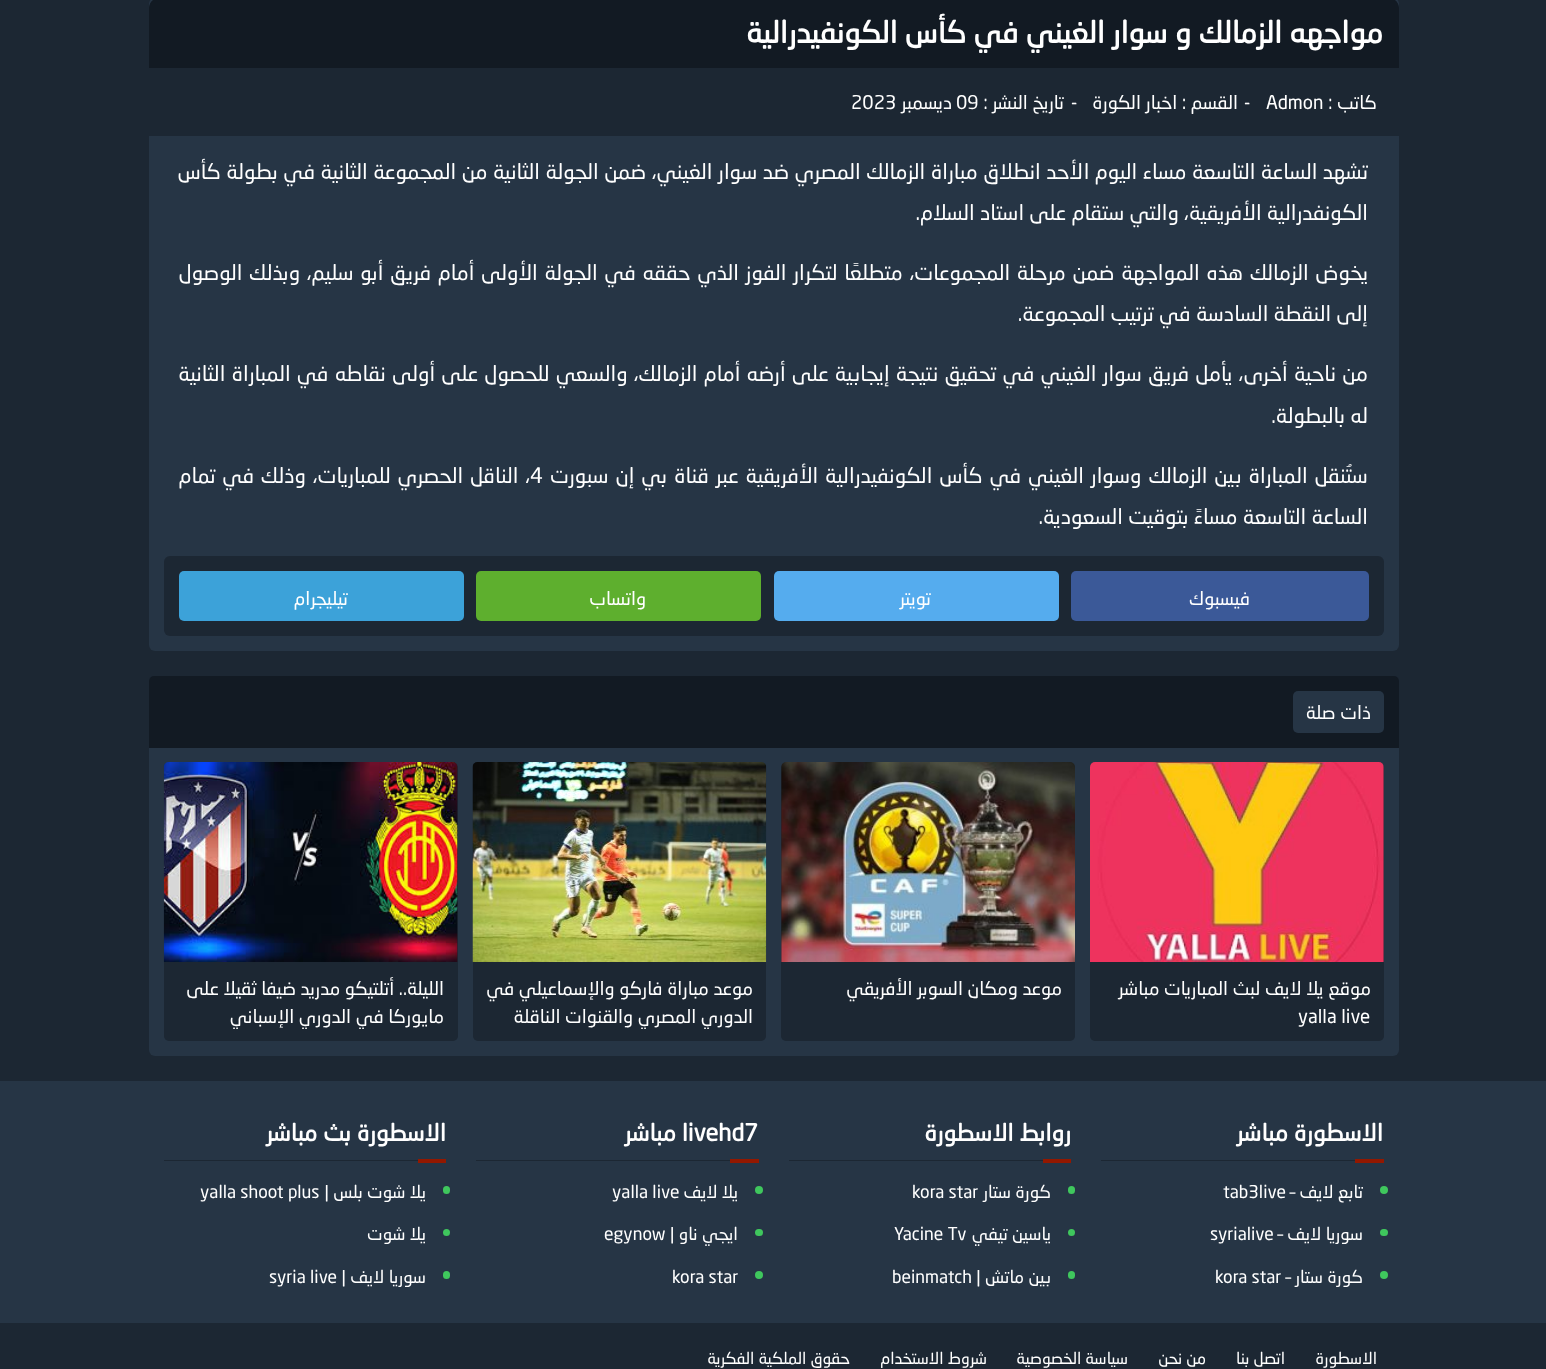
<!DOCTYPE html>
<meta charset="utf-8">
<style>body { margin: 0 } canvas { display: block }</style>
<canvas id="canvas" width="1546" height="1369"></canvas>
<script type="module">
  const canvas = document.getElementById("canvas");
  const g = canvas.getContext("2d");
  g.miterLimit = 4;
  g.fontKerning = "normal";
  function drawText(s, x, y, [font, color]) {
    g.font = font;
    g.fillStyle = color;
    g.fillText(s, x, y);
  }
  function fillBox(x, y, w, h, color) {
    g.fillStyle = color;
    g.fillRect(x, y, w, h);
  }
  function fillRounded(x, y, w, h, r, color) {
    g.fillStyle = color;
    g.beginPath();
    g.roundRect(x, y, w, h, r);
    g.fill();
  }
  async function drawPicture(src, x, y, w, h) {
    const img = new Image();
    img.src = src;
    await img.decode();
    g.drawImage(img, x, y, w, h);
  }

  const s1 = ["bold 30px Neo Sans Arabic", "#FFFFFF"];
  const s2 = ["18.75px Neo Sans Arabic", "#FFFFFF"];
  const s3 = ["21.25px Neo Sans Arabic", "#FFFFFF"];
  const s4 = ["bold 23.5px Neo Sans Arabic", "#FFFFFF"];
  const s5 = ["17.5px Neo Sans Arabic", "#FFFFFF"];
  const s6 = ["16.25px Neo Sans Arabic", "#FFFFFF"];

  fillBox(0, 0, 1546, 1369, "#1C2733");
  fillRounded(149, -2, 1250, 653, 6, "#263545");
  g.fillStyle = "#121A23";
  g.beginPath();
  g.moveTo(159, -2);
  g.lineTo(1389, -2);
  g.bezierCurveTo(1394.5, -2, 1399, 2.5, 1399, 8);
  g.lineTo(1399, 136);
  g.lineTo(149, 136);
  g.lineTo(149, 8);
  g.bezierCurveTo(149, 2.5, 153.5, -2, 159, -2);
  g.closePath();
  g.fill();
  g.direction = "rtl";
  drawText("مواجهه الزمالك و سوار الغيني في كأس الكونفيدرالية", 1383, 43, s1);
  fillBox(149, 68, 1250, 68, "#1C2733");
  drawText("كاتب :", 1377, 109, s2);
  g.direction = "ltr";
  drawText("Admon", 1266, 109, s2);
  drawText("-", 1244, 109, s2);
  g.direction = "rtl";
  drawText("القسم : اخبار الكورة", 1238, 109, s2);
  g.direction = "ltr";
  drawText("-", 1071, 109, s2);
  g.direction = "rtl";
  drawText("تاريخ النشر :", 1064, 109, s2);
  g.direction = "ltr";
  drawText("09", 956, 109, s2);
  g.direction = "rtl";
  drawText("ديسمبر", 952, 109, s2);
  g.direction = "ltr";
  drawText("2023", 851, 109, s2);
  g.wordSpacing = "0.25px";
  g.direction = "rtl";
  drawText("تشهد الساعة التاسعة مساء اليوم الأحد انطلاق مباراة الزمالك المصري ضد سوار الغيني، ضمن الجولة الثانية من المجموعة الثانية في بطولة كأس", 1368, 179, s3);
  g.wordSpacing = "0px";
  drawText("الكونفدرالية الأفريقية، والتي ستقام على استاد السلام.", 1368, 220, s3);
  g.wordSpacing = "1.4px";
  drawText("يخوض الزمالك هذه المواجهة ضمن مرحلة المجموعات، متطلعًا لتكرار الفوز الذي حققه في الجولة الأولى أمام فريق أبو سليم، وبذلك الوصول", 1368, 280, s3);
  g.wordSpacing = "0px";
  drawText("إلى النقطة السادسة في ترتيب المجموعة.", 1368, 321, s3);
  g.wordSpacing = "0.9px";
  drawText("من ناحية أخرى، يأمل فريق سوار الغيني في تحقيق نتيجة إيجابية على أرضه أمام الزمالك، والسعي للحصول على أولى نقاطه في المباراة الثانية", 1368, 381, s3);
  g.wordSpacing = "0px";
  drawText("له بالبطولة.", 1368, 423, s3);
  g.wordSpacing = "1.6px";
  drawText("ستُنقل المباراة بين الزمالك وسوار الغيني في كأس الكونفيدرالية الأفريقية عبر قناة بي إن سبورت", 1368, 483, s3);
  g.wordSpacing = "0px";
  g.direction = "ltr";
  drawText("4", 530, 483, s3);
  g.wordSpacing = "1.5px";
  g.direction = "rtl";
  drawText("، الناقل الحصري للمباريات، وذلك في تمام", 530, 483, s3);
  g.wordSpacing = "0px";
  drawText("الساعة التاسعة مساءً بتوقيت السعودية.", 1368, 524, s3);
  fillRounded(164, 556, 1220, 80, 6, "#1C2733");
  fillRounded(1071, 571, 298, 50, 5, "#3B5998");
  drawText("فيسبوك", 1250, 605, s2);
  fillRounded(774, 571, 285, 50, 5, "#55ACEE");
  drawText("تويتر", 931, 605, s2);
  fillRounded(476, 571, 285, 50, 5, "#5EAF2E");
  drawText("واتساب", 646, 605, s2);
  fillRounded(179, 571, 285, 50, 5, "#3CA2D9");
  drawText("تيليجرام", 348, 605, s2);
  fillRounded(149, 676, 1250, 380, 6, "#263545");
  g.fillStyle = "#121A23";
  g.beginPath();
  g.roundRect(149, 676, 1250, 72, [5, 5, 0, 0]);
  g.fill();
  fillRounded(1293, 691, 91, 42, 5, "#263545");
  drawText("ذات صلة", 1371, 719, s2);
  fillRounded(1090, 763, 294, 278, 5, "#1C2733");
  await drawPicture("pic1.png", 1090, 762, 294, 200);
  drawText("موقع يلا لايف لبث المباريات مباشر", 1371, 995, s2);
  g.direction = "ltr";
  drawText("yalla live", 1298, 1023, s2);
  fillRounded(781, 763, 294, 278, 5, "#1C2733");
  await drawPicture("pic2.png", 781, 762, 294, 200);
  g.direction = "rtl";
  drawText("موعد ومكان السوبر الأفريقي", 1062, 995, s2);
  fillRounded(473, 763, 293, 278, 5, "#1C2733");
  await drawPicture("pic3.png", 472, 762, 295, 200);
  drawText("موعد مباراة فاركو والإسماعيلي في", 753, 995, s2);
  g.save();
  g.beginPath();
  g.rect(485, 975, 269, 54);
  g.clip();
  drawText("الدوري المصري والقنوات الناقلة", 753, 1023, s2);
  g.restore();
  fillRounded(164, 763, 294, 278, 5, "#1C2733");
  await drawPicture("pic4.png", 163, 762, 295, 200);
  drawText("الليلة.. أتلتيكو مدريد ضيفا ثقيلا على", 444, 995, s2);
  g.save();
  g.beginPath();
  g.rect(176, 975, 269, 54);
  g.clip();
  drawText("مايوركا في الدوري الإسباني", 444, 1023, s2);
  g.restore();
  fillBox(0, 1081, 1546, 242, "#263545");
  fillBox(1101, 1160, 254, 1, "#1C2733");
  drawText("الاسطورة مباشر", 1383, 1141, s4);
  fillBox(1355, 1159, 29, 4, "#931800");
  g.fillStyle = "#3FC75D";
  g.beginPath();
  g.arc(1384, 1190, 4, 0, Math.PI * 2);
  g.fill();
  drawText("تابع لايف –", 1363, 1198, s5);
  g.direction = "ltr";
  drawText("tab3live", 1223, 1198, s5);
  fillRounded(1380, 1229, 8, 7, 3.5, "#3FC75D");
  g.direction = "rtl";
  drawText("سوريا لايف –", 1363, 1240, s5);
  g.direction = "ltr";
  drawText("syrialive", 1210, 1240, s5);
  g.fillStyle = "#3FC75D";
  g.beginPath();
  g.arc(1384, 1275, 4, 0, Math.PI * 2);
  g.fill();
  g.direction = "rtl";
  drawText("كورة ستار –", 1363, 1283, s5);
  g.direction = "ltr";
  drawText("kora star", 1215, 1283, s5);
  fillBox(789, 1160, 254, 1, "#1C2733");
  g.direction = "rtl";
  drawText("روابط الاسطورة", 1071, 1141, s4);
  fillBox(1043, 1159, 28, 4, "#931800");
  fillRounded(1068, 1186, 7, 8, 3.5, "#3FC75D");
  drawText("كورة ستار", 1051, 1198, s5);
  g.direction = "ltr";
  drawText("kora star", 912, 1198, s5);
  g.fillStyle = "#3FC75D";
  g.beginPath();
  g.arc(1071.5, 1232.5, 3.5, 0, Math.PI * 2);
  g.fill();
  g.direction = "rtl";
  drawText("ياسين تيفي", 1051, 1240, s5);
  g.direction = "ltr";
  drawText("Yacine Tv", 894, 1240, s5);
  fillRounded(1068, 1271, 7, 8, 3.5, "#3FC75D");
  g.direction = "rtl";
  drawText("بين ماتش |", 1051, 1283, s5);
  g.direction = "ltr";
  drawText("beinmatch", 892, 1283, s5);
  fillBox(476, 1160, 254, 1, "#1C2733");
  drawText("livehd7", 682, 1141, s4);
  g.direction = "rtl";
  drawText("مباشر", 676, 1141, s4);
  fillBox(730, 1159, 29, 4, "#931800");
  g.fillStyle = "#3FC75D";
  g.beginPath();
  g.arc(759, 1190, 4, 0, Math.PI * 2);
  g.fill();
  drawText("يلا لايف", 738, 1198, s5);
  g.direction = "ltr";
  drawText("yalla live", 612, 1198, s5);
  fillRounded(755, 1229, 8, 7, 3.5, "#3FC75D");
  g.direction = "rtl";
  drawText("ايجي ناو |", 738, 1240, s5);
  g.direction = "ltr";
  drawText("egynow", 604, 1240, s5);
  g.fillStyle = "#3FC75D";
  g.beginPath();
  g.arc(759, 1275, 4, 0, Math.PI * 2);
  g.fill();
  drawText("kora star", 672, 1283, s5);
  fillBox(164, 1160, 254, 1, "#1C2733");
  g.direction = "rtl";
  drawText("الاسطورة بث مباشر", 446, 1141, s4);
  fillBox(418, 1159, 28, 4, "#931800");
  fillRounded(443, 1186, 7, 8, 3.5, "#3FC75D");
  drawText("يلا شوت بلس |", 426, 1198, s5);
  g.direction = "ltr";
  drawText("yalla shoot plus", 200, 1198, s5);
  g.fillStyle = "#3FC75D";
  g.beginPath();
  g.arc(446.5, 1232.5, 3.5, 0, Math.PI * 2);
  g.fill();
  g.direction = "rtl";
  drawText("يلا شوت", 426, 1240, s5);
  fillRounded(443, 1271, 7, 8, 3.5, "#3FC75D");
  drawText("سوريا لايف |", 426, 1283, s5);
  g.direction = "ltr";
  drawText("syria live", 269, 1283, s5);
  g.direction = "rtl";
  drawText("الاسطورة", 1377, 1364, s6);
  drawText("اتصل بنا", 1285, 1364, s6);
  drawText("من نحن", 1206, 1364, s6);
  drawText("سياسة الخصوصية", 1128, 1364, s6);
  drawText("شروط الاستخدام", 987, 1364, s6);
  drawText("حقوق الملكية الفكرية", 850, 1364, s6);
</script>
